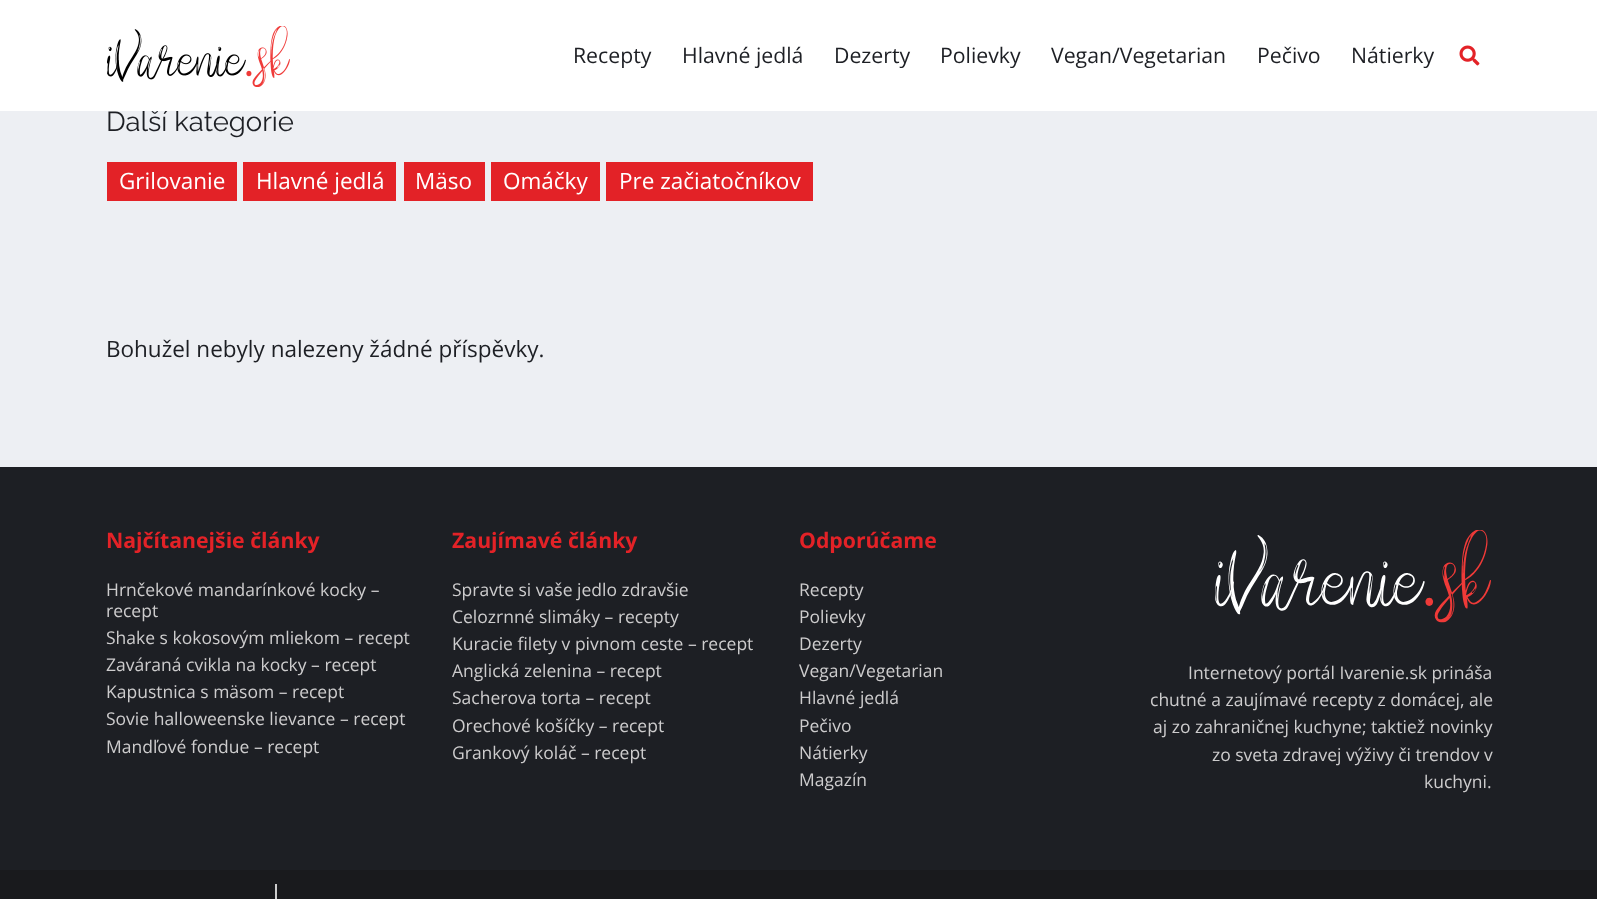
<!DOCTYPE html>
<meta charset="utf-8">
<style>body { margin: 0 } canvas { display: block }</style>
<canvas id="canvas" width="1597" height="899"></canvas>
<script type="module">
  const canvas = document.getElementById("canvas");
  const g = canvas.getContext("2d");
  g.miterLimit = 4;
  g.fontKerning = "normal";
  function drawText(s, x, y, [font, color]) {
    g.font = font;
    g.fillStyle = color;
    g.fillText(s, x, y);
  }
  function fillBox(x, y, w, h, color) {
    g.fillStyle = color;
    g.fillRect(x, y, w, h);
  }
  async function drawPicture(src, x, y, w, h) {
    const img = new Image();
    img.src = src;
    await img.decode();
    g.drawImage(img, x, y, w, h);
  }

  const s1 = ["27.5px Raleway", "#1D1F24"];
  const s2 = ["21.25px Open Sans", "#1D1F24"];
  const s3 = ["22.5px Open Sans", "#FFFFFF"];
  const s4 = ["22.5px Open Sans", "#1D1F24"];
  const s5 = ["bold 21.25px Open Sans", "#E32227"];
  const s6 = ["17.5px Open Sans", "#CDCCCD"];

  fillBox(0, 0, 1597, 899, "#EDEFF3");
  drawText("Další kategorie", 106, 131, s1);
  fillBox(0, 0, 1597, 111, "#FFFFFF");
  await drawPicture("pic1.png", 107, 26, 183, 61);
  drawText("Recepty", 573, 63, s2);
  drawText("Hlavné jedlá", 682, 63, s2);
  drawText("Dezerty", 834, 63, s2);
  drawText("Polievky", 940, 63, s2);
  drawText("Vegan/Vegetarian", 1051, 63, s2);
  drawText("Pečivo", 1257, 63, s2);
  drawText("Nátierky", 1351, 63, s2);
  await drawPicture("pic2.png", 1459, 45, 21, 21);
  fillBox(107, 162, 130, 39, "#E32227");
  drawText("Grilovanie", 119, 189, s3);
  fillBox(243, 162, 153, 39, "#E32227");
  drawText("Hlavné jedlá", 256, 189, s3);
  fillBox(404, 162, 81, 39, "#E32227");
  drawText("Mäso", 415, 189, s3);
  fillBox(491, 162, 109, 39, "#E32227");
  drawText("Omáčky", 503, 189, s3);
  fillBox(606, 162, 207, 39, "#E32227");
  drawText("Pre začiatočníkov", 619, 189, s3);
  drawText("Bohužel nebyly nalezeny žádné příspěvky.", 106, 357, s4);
  fillBox(0, 467, 1597, 403, "#1D1F24");
  drawText("Najčítanejšie články", 106, 548, s5);
  drawText("Hrnčekové mandarínkové kocky –", 106, 596, s6);
  drawText("recept", 106, 617, s6);
  drawText("Shake s kokosovým mliekom – recept", 106, 644, s6);
  drawText("Zaváraná cvikla na kocky – recept", 106, 671, s6);
  drawText("Kapustnica s mäsom – recept", 106, 698, s6);
  drawText("Sovie halloweenske lievance – recept", 106, 725, s6);
  drawText("Mandľové fondue – recept", 106, 753, s6);
  drawText("Zaujímavé články", 452, 548, s5);
  drawText("Spravte si vaše jedlo zdravšie", 452, 596, s6);
  drawText("Celozrnné slimáky – recepty", 452, 623, s6);
  drawText("Kuracie filety v pivnom ceste – recept", 452, 650, s6);
  drawText("Anglická zelenina – recept", 452, 677, s6);
  drawText("Sacherova torta – recept", 452, 704, s6);
  drawText("Orechové košíčky – recept", 452, 732, s6);
  drawText("Grankový koláč – recept", 452, 759, s6);
  drawText("Odporúčame", 799, 548, s5);
  drawText("Recepty", 799, 596, s6);
  drawText("Polievky", 799, 623, s6);
  drawText("Dezerty", 799, 650, s6);
  drawText("Vegan/Vegetarian", 799, 677, s6);
  drawText("Hlavné jedlá", 799, 704, s6);
  drawText("Pečivo", 799, 732, s6);
  drawText("Nátierky", 799, 759, s6);
  drawText("Magazín", 799, 786, s6);
  await drawPicture("pic3.png", 1215, 530, 276, 93);
  drawText("Internetový portál Ivarenie.sk prináša", 1188, 679, s6);
  drawText("chutné a zaujímavé recepty z domácej, ale", 1150, 706, s6);
  drawText("aj zo zahraničnej kuchyne; taktiež novinky", 1153, 733, s6);
  drawText("zo sveta zdravej výživy či trendov v", 1212, 761, s6);
  drawText("kuchyni.", 1424, 788, s6);
  fillBox(0, 870, 1597, 29, "#191A1D");
  fillBox(275, 884, 2, 15, "#CDCDCD");
</script>
